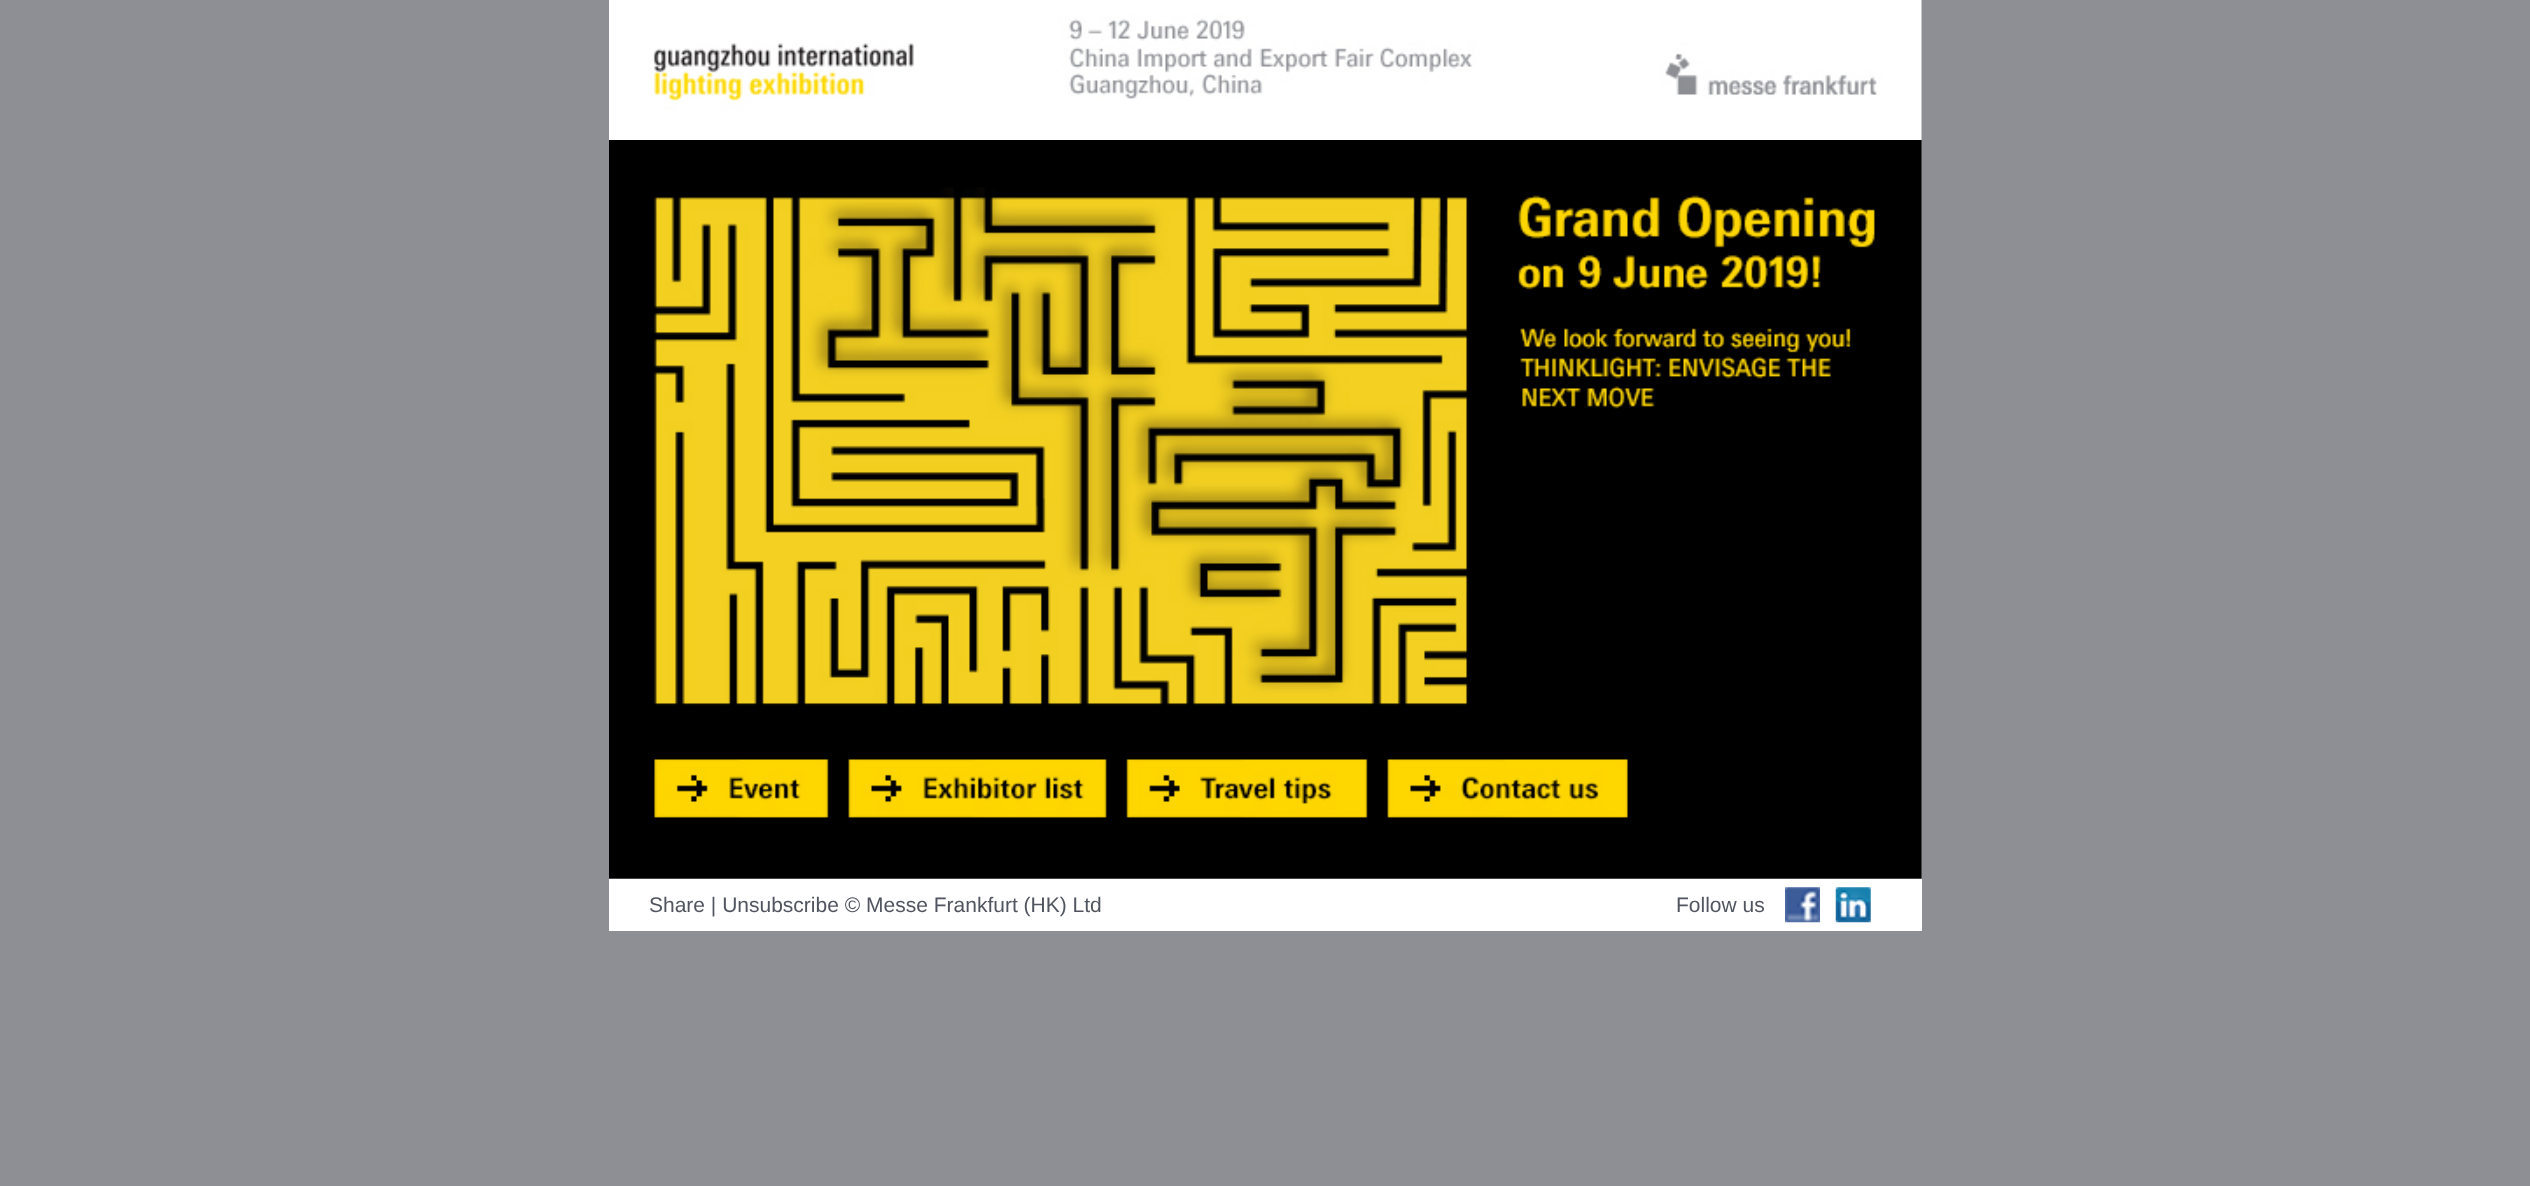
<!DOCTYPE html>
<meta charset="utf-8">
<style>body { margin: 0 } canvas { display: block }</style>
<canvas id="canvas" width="2530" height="1186"></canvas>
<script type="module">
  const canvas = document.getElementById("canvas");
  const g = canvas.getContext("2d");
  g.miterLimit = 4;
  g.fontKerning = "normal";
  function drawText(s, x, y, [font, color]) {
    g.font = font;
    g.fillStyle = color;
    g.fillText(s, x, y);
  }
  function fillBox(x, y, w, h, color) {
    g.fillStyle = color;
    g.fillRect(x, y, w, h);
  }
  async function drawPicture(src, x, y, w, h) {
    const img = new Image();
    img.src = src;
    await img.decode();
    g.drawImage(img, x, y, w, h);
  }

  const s1 = ["21px Liberation Sans", "#50555F"];

  fillBox(0, 0, 2530, 1186, "#8D8F95");
  await drawPicture("pic1.png", 609, 0, 1313, 140);
  await drawPicture("pic2.png", 609, 140, 1313, 739);
  fillBox(609, 879, 1313, 52, "#FFFFFF");
  drawText("Share | Unsubscribe © Messe Frankfurt (HK) Ltd", 649, 912, s1);
  drawText("Follow us", 1676, 912, s1);
  await drawPicture("pic3.png", 1785, 887, 35, 36);
  await drawPicture("pic4.png", 1835, 887, 36, 36);
</script>
